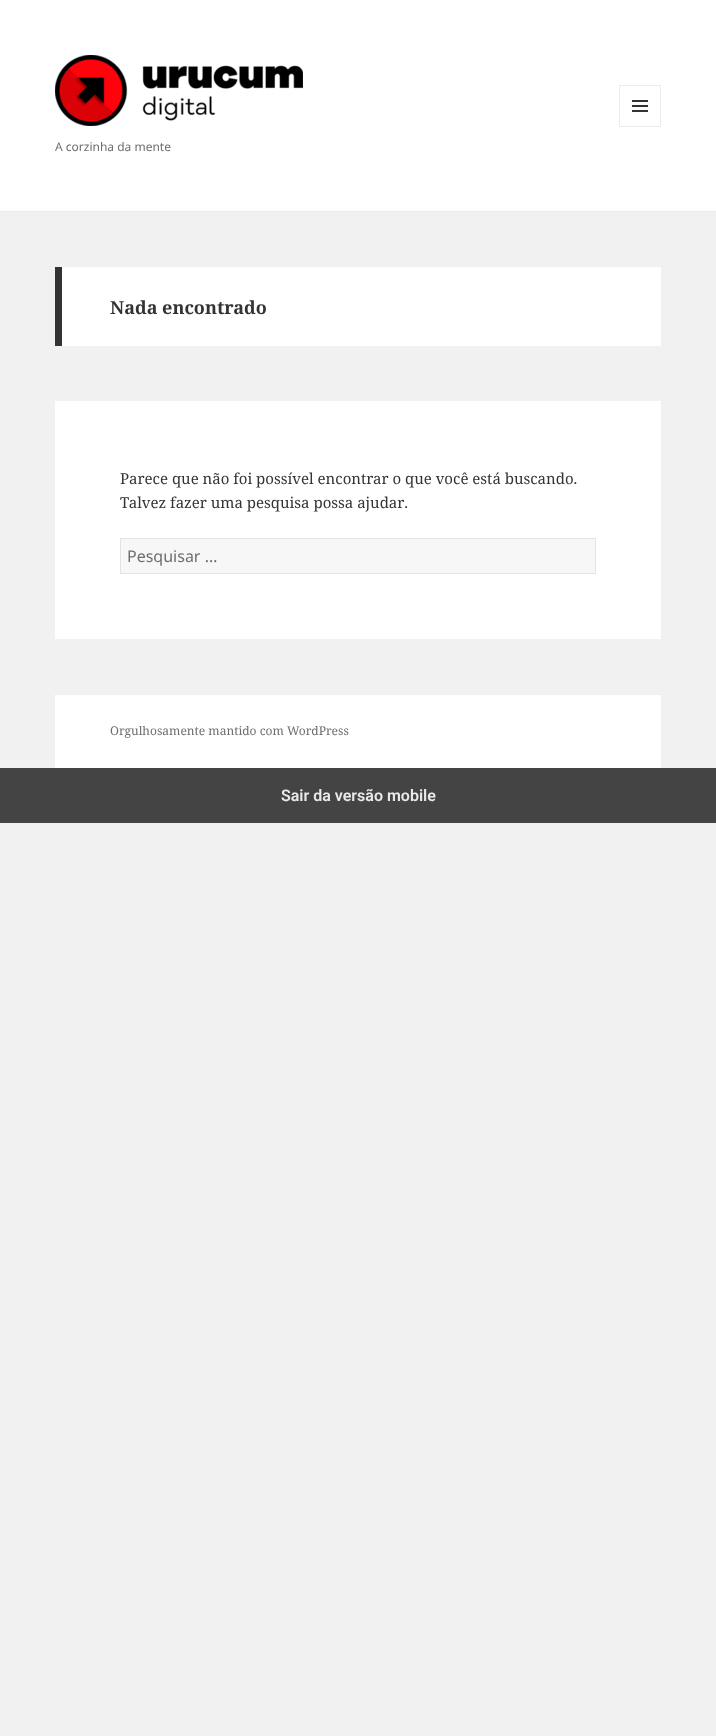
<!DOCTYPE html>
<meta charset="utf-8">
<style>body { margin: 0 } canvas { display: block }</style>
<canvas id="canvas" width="716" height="1736"></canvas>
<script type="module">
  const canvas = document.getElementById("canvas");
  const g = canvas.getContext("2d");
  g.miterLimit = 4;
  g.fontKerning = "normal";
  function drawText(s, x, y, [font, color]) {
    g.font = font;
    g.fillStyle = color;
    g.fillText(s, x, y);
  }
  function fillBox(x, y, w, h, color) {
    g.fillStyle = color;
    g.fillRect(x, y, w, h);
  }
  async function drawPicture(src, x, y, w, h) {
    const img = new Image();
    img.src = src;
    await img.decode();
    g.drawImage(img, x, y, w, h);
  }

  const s1 = ["12px Noto Sans", "#6E6E6E"];
  const s2 = ["bold 18px Noto Serif", "#333333"];
  const s3 = ["15px Noto Serif", "#333333"];
  const s4 = ["16px Noto Sans", "#6E6E6E"];
  const s5 = ["12px Noto Serif", "#6E6E6E"];
  const s6 = ["600 16px Roboto", "#EAEAEA"];

  fillBox(0, 0, 716, 1736, "#F1F1F1");
  fillBox(0, 0, 716, 211, "#FFFFFF");
  fillBox(0, 211, 716, 1, "#EBEBEB");
  await drawPicture("pic1.png", 55, 55, 248, 71);
  g.strokeStyle = "#EBEBEB";
  g.strokeRect(619.5, 85.5, 41, 41);
  await drawPicture("pic2.png", 632, 100, 16, 12);
  drawText("A corzinha da mente", 55, 151, s1);
  fillBox(62, 267, 599, 79, "#FFFFFF");
  fillBox(55, 267, 7, 79, "#333333");
  drawText("Nada encontrado", 110, 314, s2);
  fillBox(55, 401, 606, 238, "#FFFFFF");
  drawText("Parece que não foi possível encontrar o que você está buscando.", 120, 484, s3);
  drawText("Talvez fazer uma pesquisa possa ajudar.", 120, 508, s3);
  g.fillStyle = "#F7F7F7";
  g.beginPath();
  g.rect(120.5, 538.5, 475, 35);
  g.fill();
  g.strokeStyle = "#E3E3E3";
  g.stroke();
  drawText("Pesquisar …", 127, 562, s4);
  fillBox(55, 695, 606, 73, "#FFFFFF");
  drawText("Orgulhosamente mantido com WordPress", 110, 735, s5);
  fillBox(0, 768, 716, 55, "#444444");
  drawText("Sair da versão mobile", 281, 801, s6);
</script>
